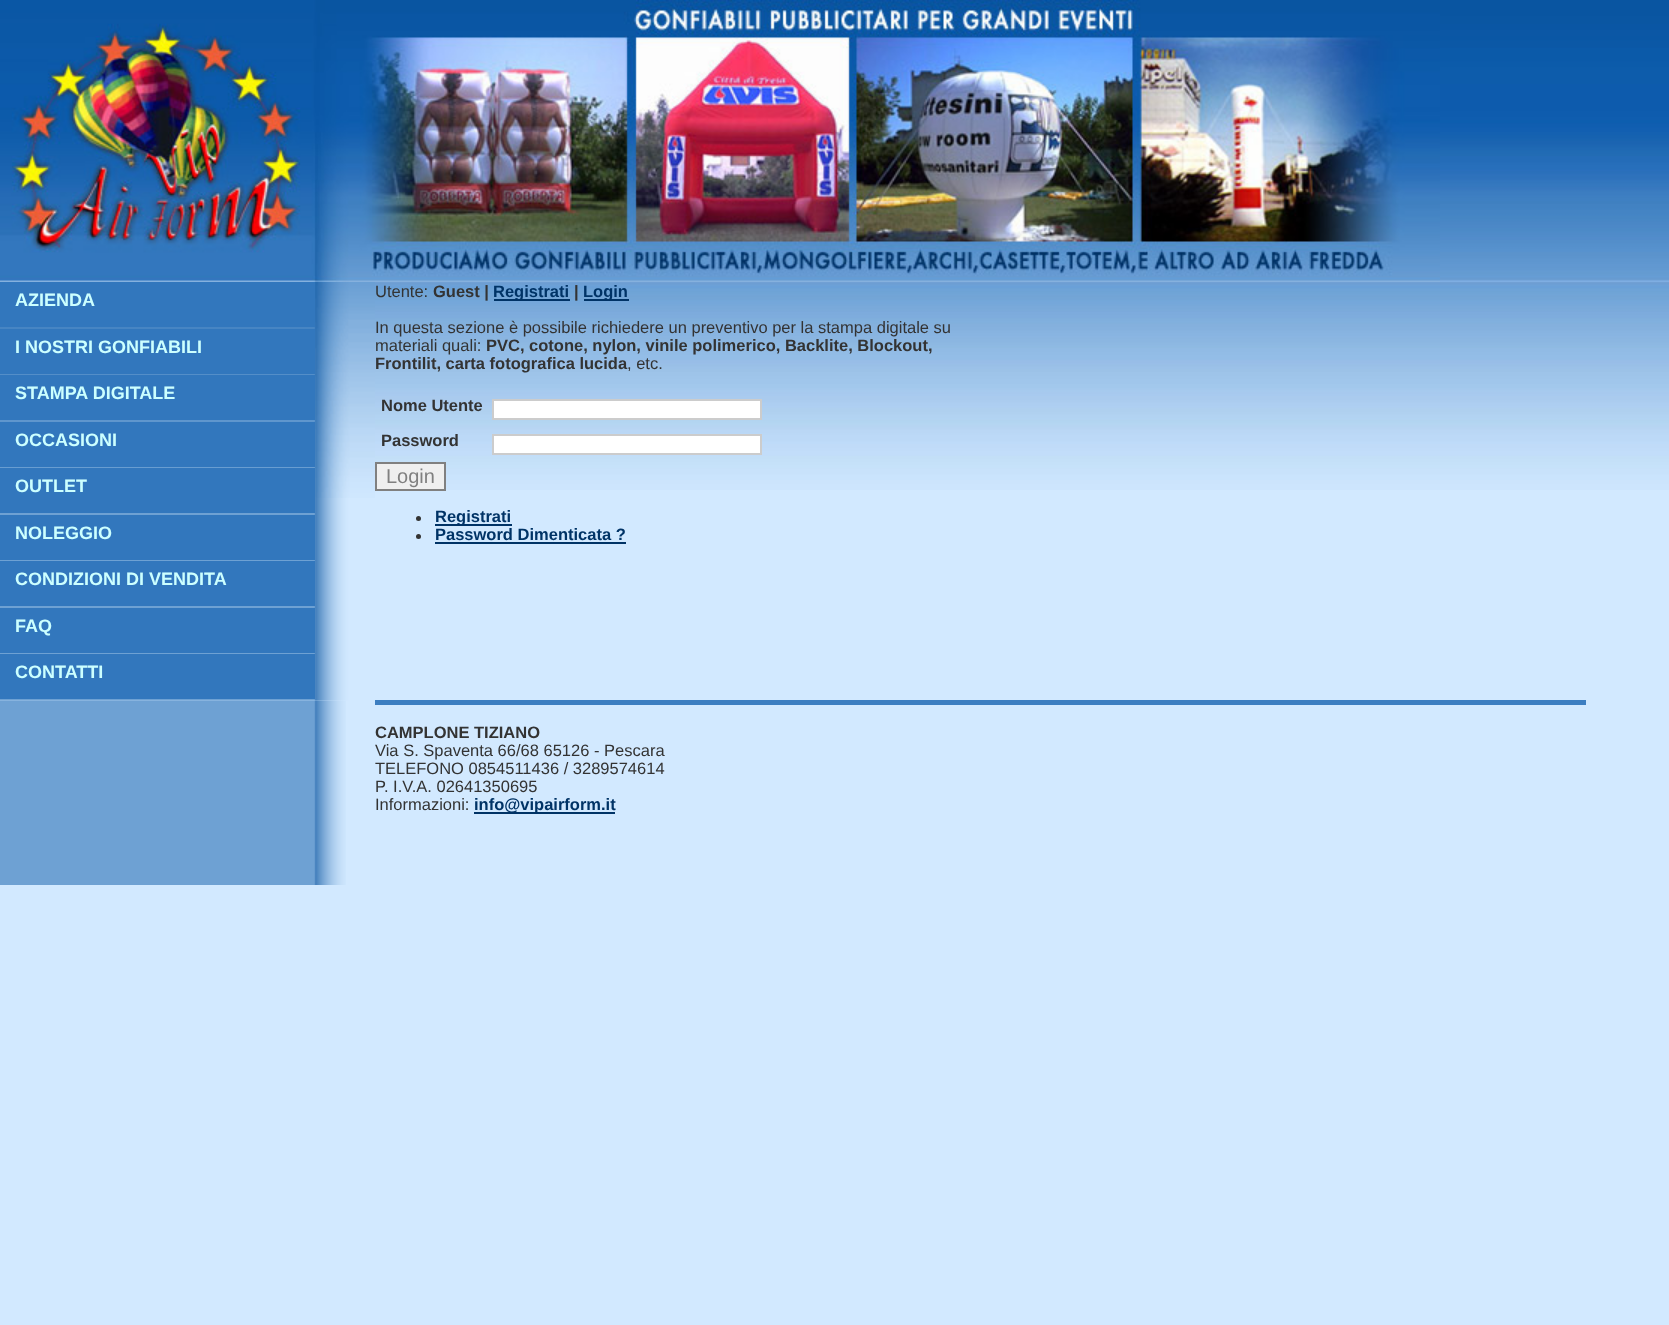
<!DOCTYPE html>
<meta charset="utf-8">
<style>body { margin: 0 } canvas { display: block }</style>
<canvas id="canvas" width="1669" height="1325"></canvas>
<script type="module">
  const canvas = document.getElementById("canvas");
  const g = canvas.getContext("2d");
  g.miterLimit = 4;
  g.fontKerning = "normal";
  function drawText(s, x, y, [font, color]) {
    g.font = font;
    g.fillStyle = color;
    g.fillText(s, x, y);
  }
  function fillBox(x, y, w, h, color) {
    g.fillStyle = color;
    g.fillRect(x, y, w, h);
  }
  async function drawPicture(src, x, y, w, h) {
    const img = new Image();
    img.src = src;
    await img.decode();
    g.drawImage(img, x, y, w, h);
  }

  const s1 = ["bold 18px Liberation Sans", "#CCFFFF"];
  const s2 = ["16.5px Liberation Sans", "#333333"];
  const s3 = ["bold 16.5px Liberation Sans", "#333333"];
  const s4 = ["bold 16.5px Liberation Sans", "#003366"];
  const s5 = ["20px Liberation Sans", "#808080"];

  fillBox(0, 0, 1669, 1325, "#D2E9FF");
  await drawPicture("pic1.png", 375, 0, 1294, 490);
  await drawPicture("pic2.png", 0, 0, 1440, 282);
  await drawPicture("pic3.png", 0, 498, 375, 203);
  await drawPicture("pic4.png", 0, 282, 375, 216);
  fillBox(0, 282, 315, 45, "#3277BD");
  drawText("AZIENDA", 15, 306, s1);
  fillBox(0, 329, 315, 45, "#3277BD");
  drawText("I NOSTRI GONFIABILI", 15, 353, s1);
  fillBox(0, 375, 315, 45, "#3277BD");
  drawText("STAMPA DIGITALE", 15, 399, s1);
  fillBox(0, 422, 315, 45, "#3277BD");
  drawText("OCCASIONI", 15, 446, s1);
  fillBox(0, 468, 315, 45, "#3277BD");
  drawText("OUTLET", 15, 492, s1);
  fillBox(0, 515, 315, 45, "#3277BD");
  drawText("NOLEGGIO", 15, 539, s1);
  fillBox(0, 561, 315, 45, "#3277BD");
  drawText("CONDIZIONI DI VENDITA", 15, 585, s1);
  fillBox(0, 608, 315, 45, "#3277BD");
  drawText("FAQ", 15, 632, s1);
  fillBox(0, 654, 315, 45, "#3277BD");
  drawText("CONTATTI", 15, 678, s1);
  drawText("Utente:", 375, 297, s2);
  drawText("Guest |", 433, 297, s3);
  fillBox(494, 299, 76, 2, "#003366");
  drawText("Registrati", 493, 297, s4);
  drawText("|", 574, 297, s3);
  fillBox(584, 299, 45, 2, "#003366");
  drawText("Login", 583, 297, s4);
  drawText("In questa sezione è possibile richiedere un preventivo per la stampa digitale su", 375, 333, s2);
  drawText("materiali quali:", 375, 351, s2);
  drawText("PVC, cotone, nylon, vinile polimerico, Backlite, Blockout,", 486, 351, s3);
  drawText("Frontilit, carta fotografica lucida", 375, 369, s3);
  drawText(", etc.", 627, 369, s2);
  drawText("Nome Utente", 381, 411, s3);
  g.fillStyle = "#FFFFFF";
  g.beginPath();
  g.rect(493, 400, 268, 19);
  g.fill();
  g.strokeStyle = "#CCCCCC";
  g.lineWidth = 2;
  g.stroke();
  drawText("Password", 381, 446, s3);
  g.fillStyle = "#FFFFFF";
  g.beginPath();
  g.rect(493, 435, 268, 19);
  g.fill();
  g.stroke();
  g.fillStyle = "#EFEFEF";
  g.beginPath();
  g.rect(376, 463, 69, 27);
  g.fill();
  g.strokeStyle = "#808080";
  g.stroke();
  drawText("Login", 386, 483, s5);
  g.fillStyle = "#333333";
  g.beginPath();
  g.arc(418.5, 518.5, 2.5, 0, Math.PI * 2);
  g.fill();
  fillBox(435, 524, 77, 2, "#003366");
  drawText("Registrati", 435, 522, s4);
  g.fillStyle = "#333333";
  g.beginPath();
  g.arc(418.5, 536.5, 2.5, 0, Math.PI * 2);
  g.fill();
  drawText("Password Dimenticata ?", 435, 540, s4);
  fillBox(435, 542, 191, 2, "#003366");
  await drawPicture("pic5.png", 0, 700, 346, 185);
  fillBox(375, 700, 1211, 5, "#3C7EC1");
  drawText("CAMPLONE TIZIANO", 375, 738, s3);
  drawText("Via S. Spaventa 66/68 65126 - Pescara", 375, 756, s2);
  drawText("TELEFONO 0854511436 / 3289574614", 375, 774, s2);
  drawText("P. I.V.A. 02641350695", 375, 792, s2);
  drawText("Informazioni:", 375, 810, s2);
  fillBox(474, 812, 141, 2, "#003366");
  drawText("info@vipairform.it", 474, 810, s4);
</script>
